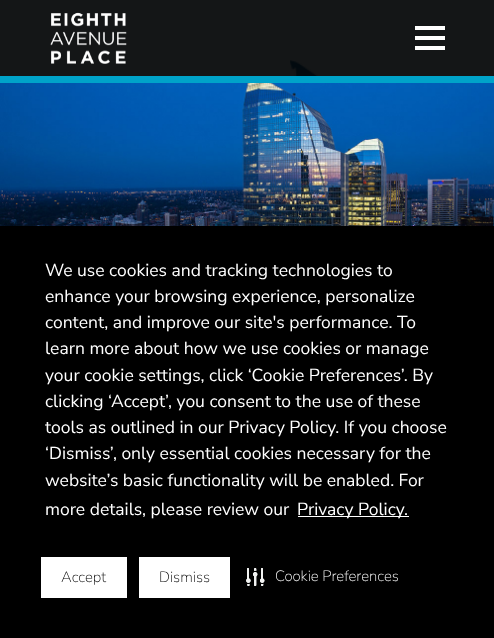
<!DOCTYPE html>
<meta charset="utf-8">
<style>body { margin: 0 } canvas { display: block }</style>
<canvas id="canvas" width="494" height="638"></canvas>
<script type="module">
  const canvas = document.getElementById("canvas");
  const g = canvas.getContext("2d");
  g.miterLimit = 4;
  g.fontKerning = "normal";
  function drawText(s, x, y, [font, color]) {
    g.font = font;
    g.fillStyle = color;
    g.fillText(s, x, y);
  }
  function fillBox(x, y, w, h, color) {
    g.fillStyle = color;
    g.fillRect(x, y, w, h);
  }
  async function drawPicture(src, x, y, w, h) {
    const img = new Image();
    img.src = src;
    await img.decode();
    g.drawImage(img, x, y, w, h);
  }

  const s1 = ["17.5px Nunito Sans", "#FFFFFF"];
  const s2 = ["200 15px Nunito Sans", "#000000"];
  const s3 = ["200 15px Nunito Sans", "#FFFFFF"];

  fillBox(0, 0, 494, 638, "#FFFFFF");
  fillBox(0, 0, 494, 76, "#141617");
  await drawPicture("pic1.png", 290, 60, 37, 16);
  fillBox(0, 76, 494, 7, "#00A3C9");
  await drawPicture("pic2.png", 50, 12, 77, 52);
  fillBox(415, 36, 30, 4, "#FFFFFF");
  fillBox(415, 26, 30, 4, "#FFFFFF");
  fillBox(415, 46, 30, 4, "#FFFFFF");
  await drawPicture("pic3.png", 0, 83, 494, 143);
  fillBox(0, 226, 494, 412, "#000000");
  drawText("We use cookies and tracking technologies to", 45, 276, s1);
  drawText("enhance your browsing experience, personalize", 45, 302, s1);
  drawText("content, and improve our site's performance. To", 45, 328, s1);
  drawText("learn more about how we use cookies or manage", 45, 354, s1);
  drawText("your cookie settings, click ‘Cookie Preferences’. By", 45, 381, s1);
  drawText("clicking ‘Accept’, you consent to the use of these", 45, 407, s1);
  drawText("tools as outlined in our Privacy Policy. If you choose", 45, 433, s1);
  drawText("‘Dismiss’, only essential cookies necessary for the", 45, 459, s1);
  drawText("website’s basic functionality will be enabled. For", 45, 486, s1);
  drawText("more details, please review our", 45, 515, s1);
  fillBox(298, 516, 111, 1, "#FFFFFF");
  drawText("Privacy Policy.", 297, 515, s1);
  fillBox(41, 557, 86, 41, "#FFFFFF");
  drawText("Accept", 61, 582, s2);
  fillBox(139, 557, 91, 41, "#FFFFFF");
  drawText("Dismiss", 159, 582, s2);
  await drawPicture("pic4.png", 246, 568, 19, 18);
  drawText("Cookie Preferences", 275, 581, s3);
</script>
